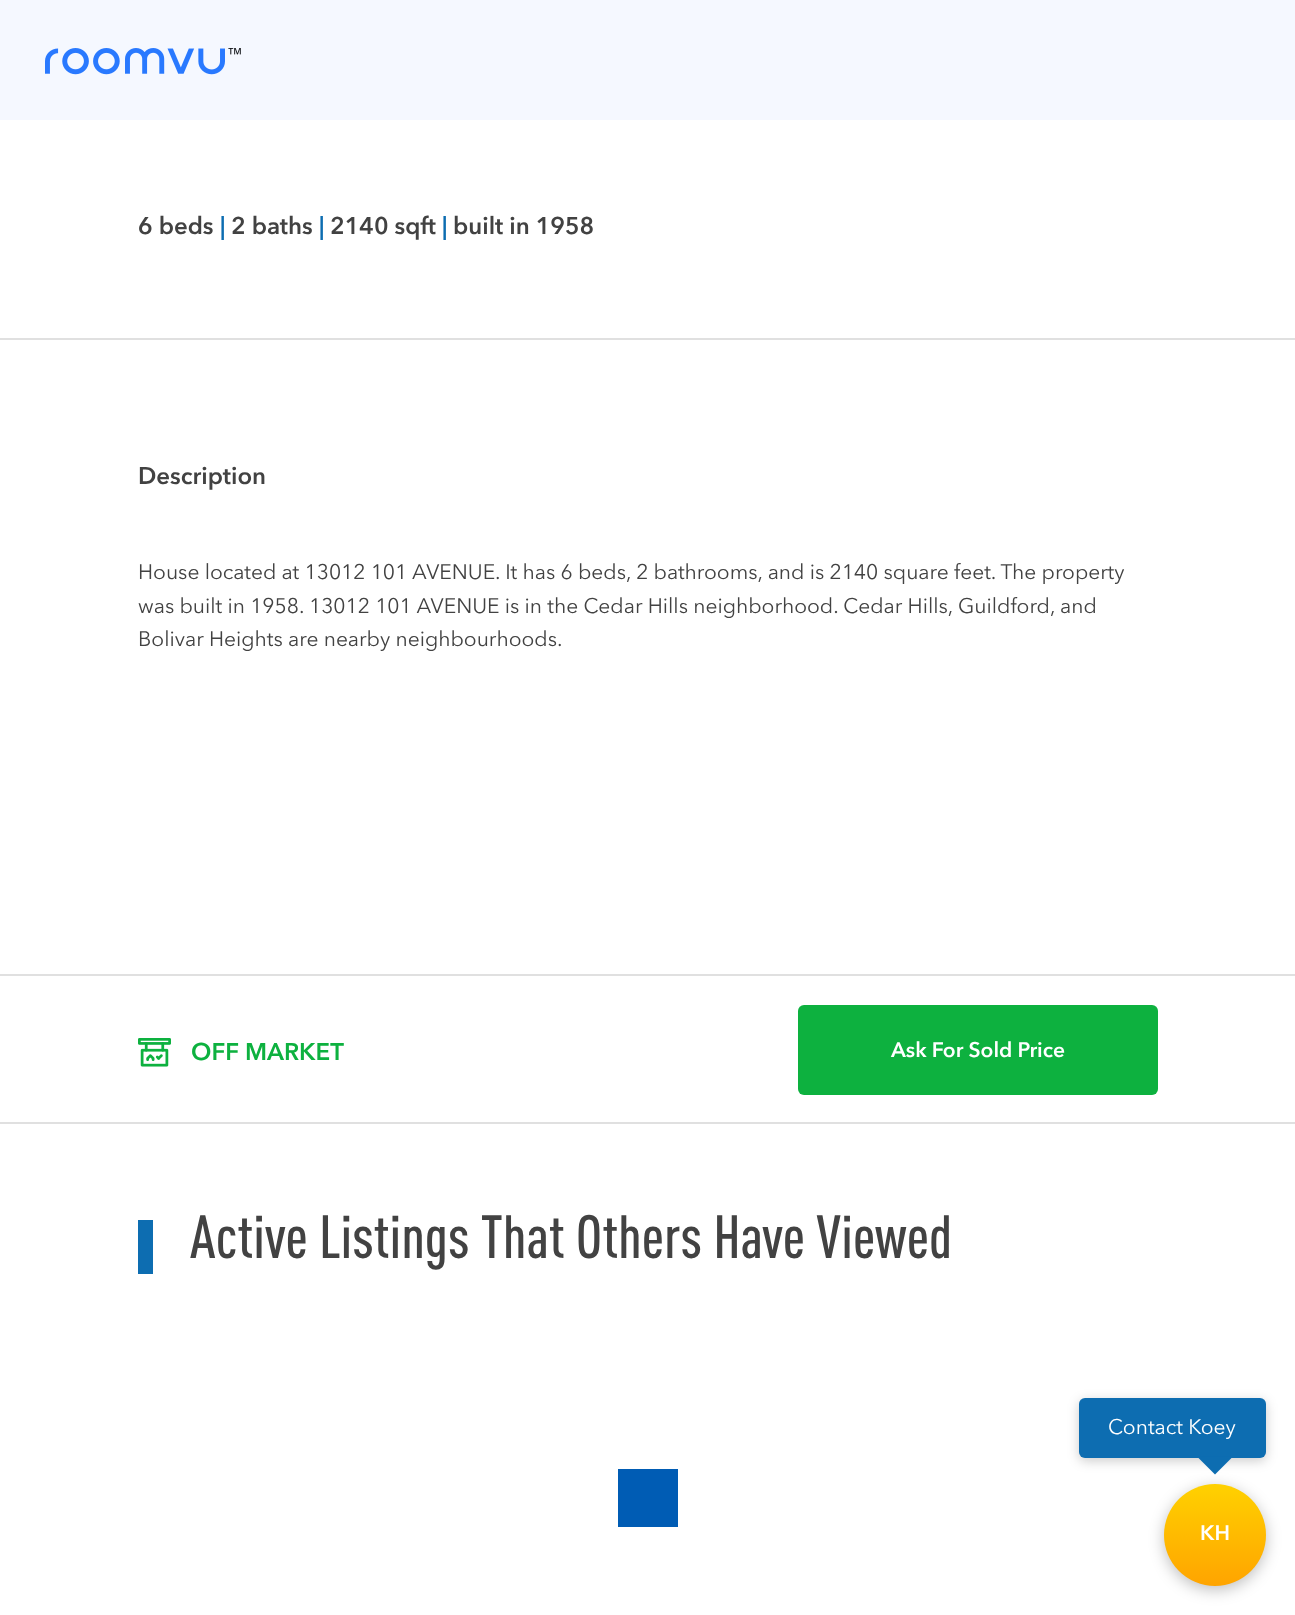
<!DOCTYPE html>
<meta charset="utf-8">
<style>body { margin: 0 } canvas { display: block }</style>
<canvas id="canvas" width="1295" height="1615"></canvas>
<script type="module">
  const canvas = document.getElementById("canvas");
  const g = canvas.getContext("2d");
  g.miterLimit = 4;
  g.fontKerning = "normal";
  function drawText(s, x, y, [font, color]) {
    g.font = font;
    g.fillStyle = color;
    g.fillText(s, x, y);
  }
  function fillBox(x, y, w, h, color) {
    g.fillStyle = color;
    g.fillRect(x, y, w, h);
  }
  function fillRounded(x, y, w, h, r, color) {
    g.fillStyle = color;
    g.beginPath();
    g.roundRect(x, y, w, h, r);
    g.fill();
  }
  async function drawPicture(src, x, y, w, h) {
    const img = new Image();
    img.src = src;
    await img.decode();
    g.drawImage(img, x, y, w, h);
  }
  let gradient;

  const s1 = ["600 24px Avenir Next", "#424242"];
  const s2 = ["600 24px Avenir Next", "#0D6DB1"];
  const s3 = ["21px Avenir Next", "#424242"];
  const s4 = ["600 24px Avenir Next", "#0DB13F"];
  const s5 = ["600 21px Avenir Next", "#FFFFFF"];
  const s6 = ["500 60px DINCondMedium", "#424242"];
  const s7 = ["21px Avenir Next", "#FFFFFF"];

  fillBox(0, 0, 1295, 1615, "#FFFFFF");
  fillBox(0, 0, 1295, 120, "#F5F8FF");
  await drawPicture("pic1.png", 45, 48, 196, 27);
  drawText("6 beds", 138, 234, s1);
  drawText("|", 220, 234, s2);
  drawText("2 baths", 231, 234, s1);
  drawText("|", 319, 234, s2);
  drawText("2140 sqft", 330, 234, s1);
  drawText("|", 442, 234, s2);
  drawText("built in 1958", 453, 234, s1);
  fillBox(0, 338, 1295, 2, "#E0E0E0");
  drawText("Description", 138, 484, s1);
  drawText("House located at 13012 101 AVENUE. It has 6 beds, 2 bathrooms, and is 2140 square feet. The property", 138, 579, s3);
  drawText("was built in 1958. 13012 101 AVENUE is in the Cedar Hills neighborhood. Cedar Hills, Guildford, and", 138, 613, s3);
  drawText("Bolivar Heights are nearby neighbourhoods.", 138, 646, s3);
  fillBox(0, 974, 1295, 2, "#E0E0E0");
  fillBox(0, 1122, 1295, 2, "#E0E0E0");
  await drawPicture("pic2.png", 138, 1038, 33, 29);
  drawText("OFF MARKET", 191, 1060, s4);
  fillRounded(798, 1005, 360, 90, 6, "#0DB13F");
  drawText("Ask For Sold Price", 891, 1057, s5);
  fillBox(138, 1220, 15, 54, "#0D6DB1");
  drawText("Active Listings That Others Have Viewed", 190, 1258, s6);
  fillBox(618, 1469, 60, 19, "#005CB4");
  fillBox(618, 1488, 60, 20, "#005CB4");
  fillBox(618, 1508, 60, 19, "#005CB4");
  g.fillStyle = "rgba(0, 0, 0, 0.2)";
  g.filter = "blur(6px)";
  g.beginPath();
  g.roundRect(1079, 1401, 187, 60, 6);
  g.fill();
  g.filter = "none";
  fillRounded(1079, 1398, 187, 60, 6, "#0D6DB1");
  drawText("Contact Koey", 1108, 1434, s7);
  g.fillStyle = "rgba(0, 0, 0, 0.25)";
  g.filter = "blur(7.5px)";
  g.beginPath();
  g.roundRect(1164, 1488, 102, 102, 51);
  g.fill();
  g.filter = "none";
  g.fillStyle = "#0D6DB1";
  g.beginPath();
  g.moveTo(1197, 1456.5);
  g.lineTo(1233, 1456.5);
  g.lineTo(1215, 1474.5);
  g.closePath();
  g.fill();
  gradient = g.createLinearGradient(1215, 1484, 1215, 1586);
  gradient.addColorStop(0, "#FFD100");
  gradient.addColorStop(1, "#FFA400");
  g.fillStyle = gradient;
  g.beginPath();
  g.arc(1215, 1535, 51, 0, Math.PI * 2);
  g.fill();
  drawText("KH", 1200, 1540, s5);
</script>
